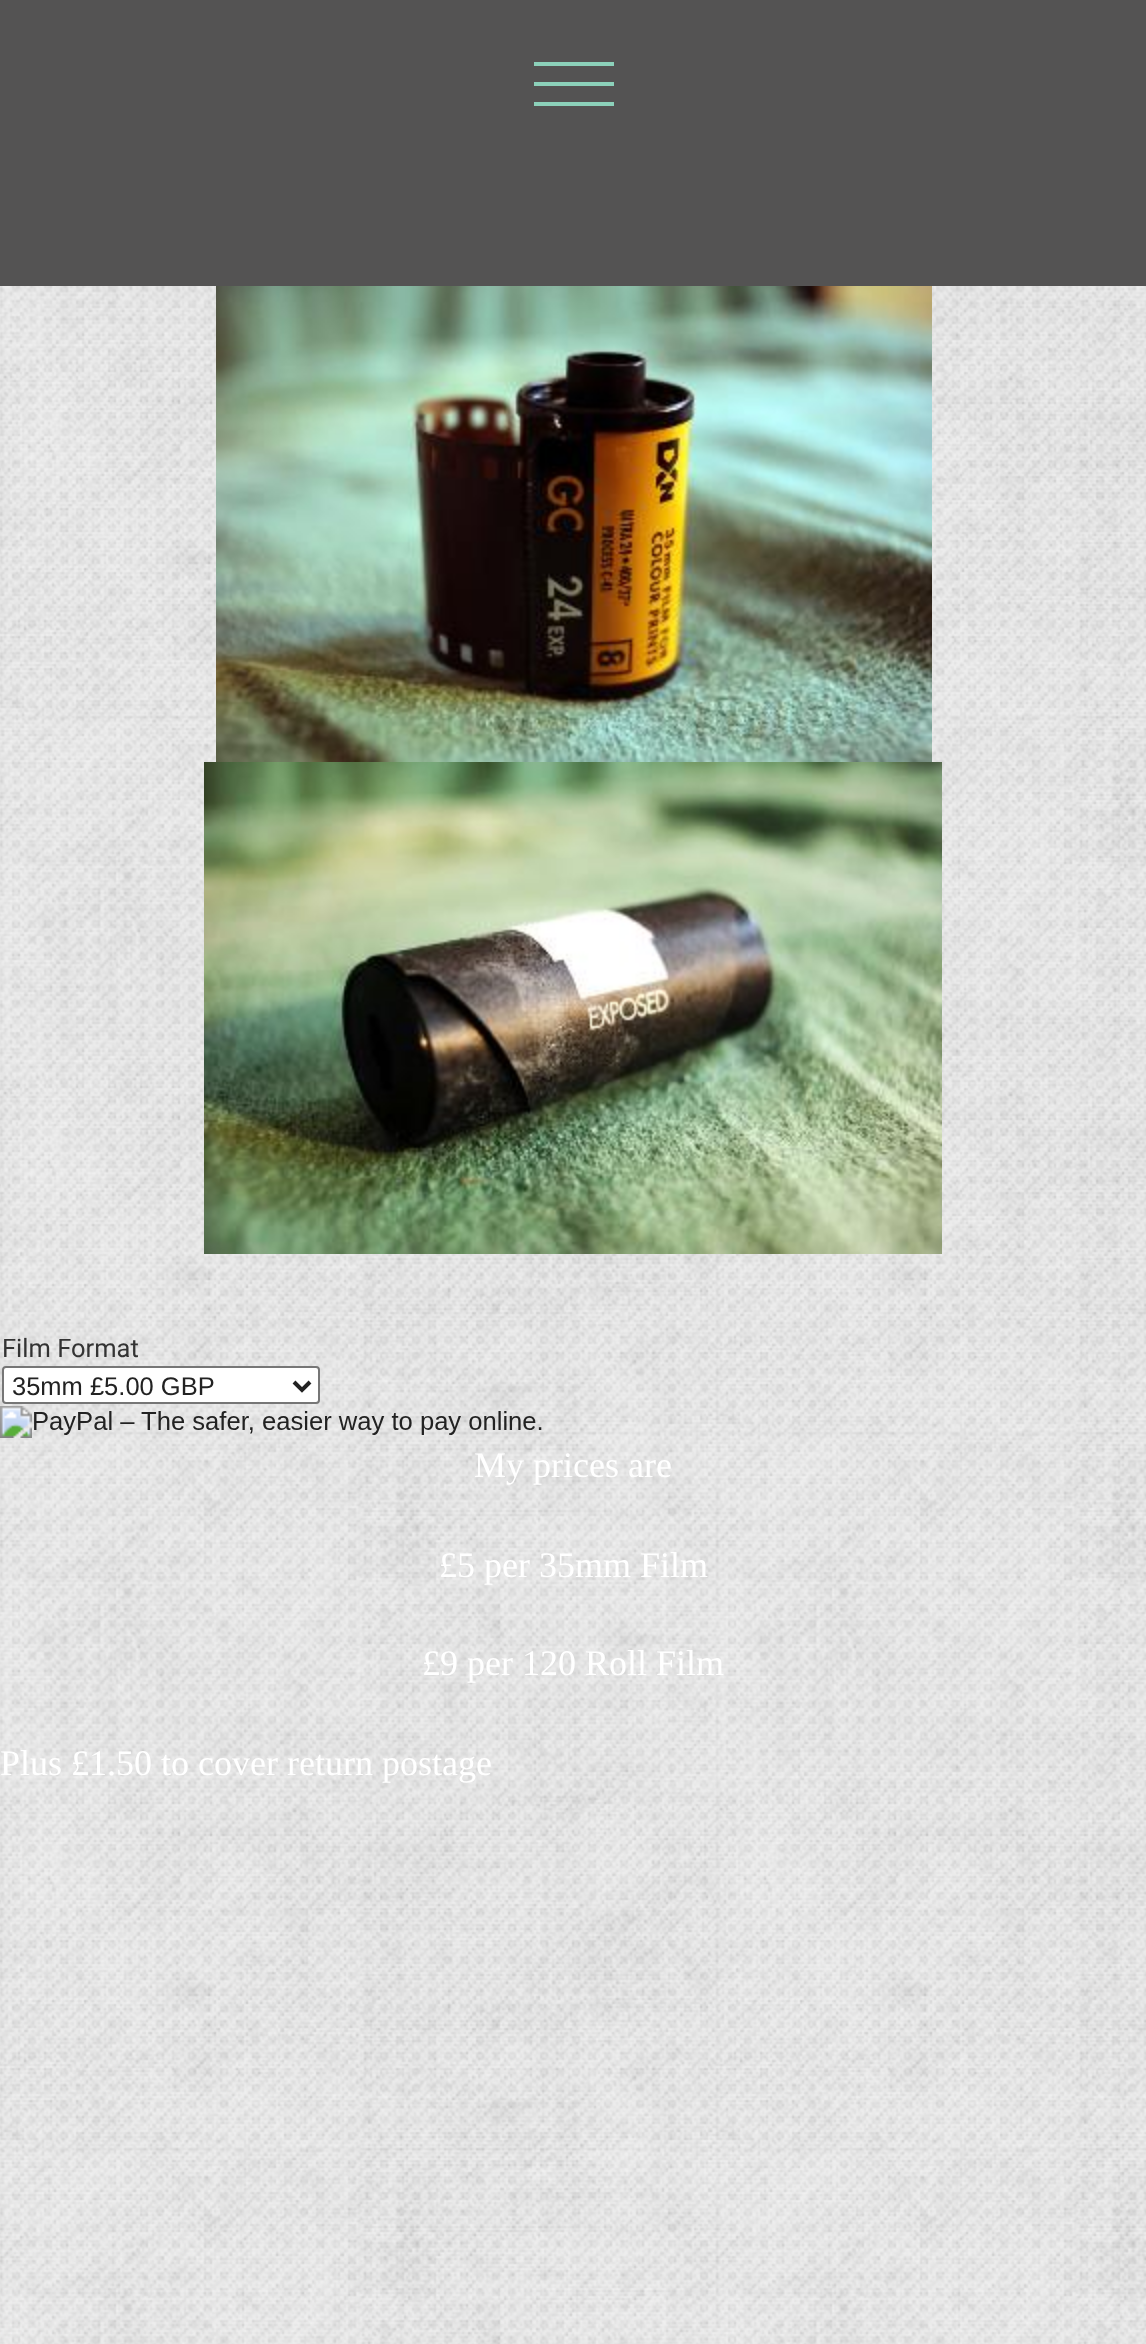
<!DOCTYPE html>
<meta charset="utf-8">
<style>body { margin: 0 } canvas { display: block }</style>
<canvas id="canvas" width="1146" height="2344"></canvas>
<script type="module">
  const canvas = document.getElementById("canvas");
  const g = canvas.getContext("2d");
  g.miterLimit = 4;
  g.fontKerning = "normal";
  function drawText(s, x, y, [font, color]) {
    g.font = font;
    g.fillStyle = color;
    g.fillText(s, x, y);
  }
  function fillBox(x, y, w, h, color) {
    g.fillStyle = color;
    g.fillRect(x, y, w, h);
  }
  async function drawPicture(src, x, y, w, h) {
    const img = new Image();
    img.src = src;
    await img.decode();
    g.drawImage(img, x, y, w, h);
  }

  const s1 = ["25.5px Roboto", "#333333"];
  const s2 = ["25.5px Liberation Sans", "#222222"];
  const s3 = ["36px Liberation Serif", "#FFFFFF"];

  fillBox(0, 0, 1146, 2344, "#FFFFFF");
  await drawPicture("pic1.png", 0, 286, 1146, 2058);
  fillBox(0, 0, 1146, 286, "#545353");
  fillBox(534, 62, 80, 4, "#8CD1BA");
  fillBox(534, 82, 80, 4, "#8CD1BA");
  fillBox(534, 102, 80, 4, "#8CD1BA");
  await drawPicture("pic2.png", 216, 286, 716, 476);
  await drawPicture("pic3.png", 204, 762, 738, 492);
  drawText("Film Format", 2, 1357, s1);
  g.fillStyle = "#FFFFFF";
  g.beginPath();
  g.roundRect(3, 1367, 316, 36, 3);
  g.fill();
  g.strokeStyle = "#767676";
  g.lineWidth = 2;
  g.stroke();
  g.beginPath();
  g.moveTo(294, 1382);
  g.lineTo(302, 1390);
  g.lineTo(310, 1382);
  g.strokeStyle = "#222222";
  g.lineWidth = 4;
  g.stroke();
  drawText("35mm £5.00 GBP", 12, 1395, s2);
  await drawPicture("pic4.png", 0, 1406, 542, 32);
  drawText("My prices are", 474, 1477, s3);
  drawText("£5 per 35mm Film", 439, 1577, s3);
  drawText("£9 per 120 Roll Film", 422, 1675, s3);
  drawText("Plus £1.50 to cover return postage", 0, 1775, s3);
</script>
